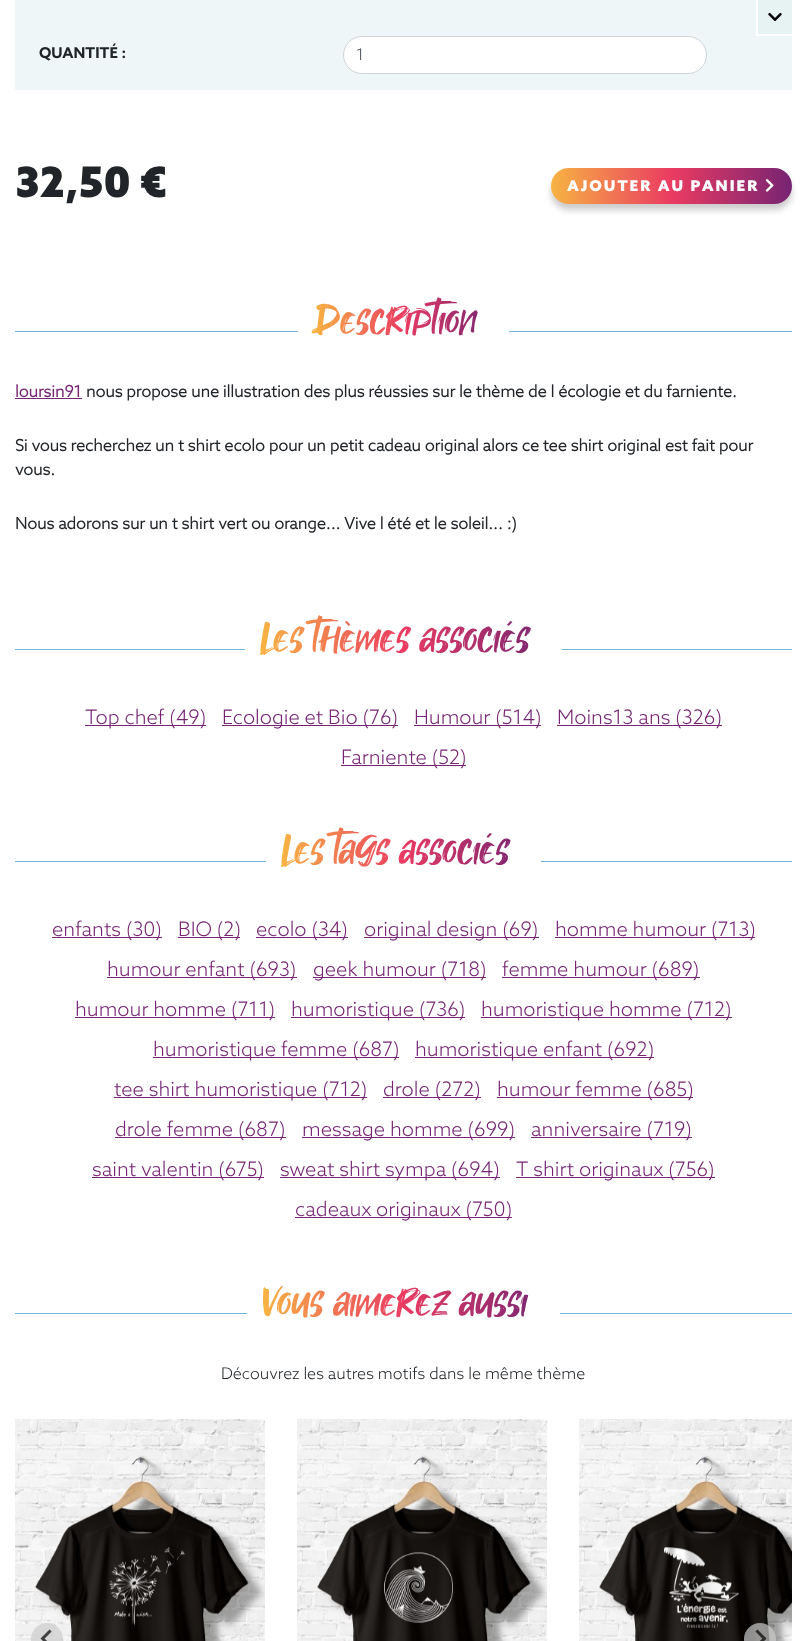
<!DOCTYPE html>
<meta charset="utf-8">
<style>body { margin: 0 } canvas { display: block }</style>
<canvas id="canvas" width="807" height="1641"></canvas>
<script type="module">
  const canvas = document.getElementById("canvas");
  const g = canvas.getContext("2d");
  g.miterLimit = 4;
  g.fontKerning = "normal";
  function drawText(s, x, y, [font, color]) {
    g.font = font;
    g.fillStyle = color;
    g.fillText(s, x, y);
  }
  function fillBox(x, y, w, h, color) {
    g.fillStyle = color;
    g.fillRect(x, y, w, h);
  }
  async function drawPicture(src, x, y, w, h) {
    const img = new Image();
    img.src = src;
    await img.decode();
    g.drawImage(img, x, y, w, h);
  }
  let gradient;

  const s1 = ["bold 15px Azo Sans", "#212529"];
  const s2 = ["300 16px Azo Sans", "#495057"];
  const s3 = ["900 42px Azo Sans", "#212529"];
  const s4 = ["900 15px Azo Sans", "#FFFFFF"];
  const s5 = ["bold 16px 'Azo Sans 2'", "#762473"];
  const s6 = ["bold 16px 'Azo Sans 2'", "#212529"];
  const s7 = ["300 20px Azo Sans", "#762473"];
  const s8 = ["300 16px Azo Sans", "#212529"];

  fillBox(0, 0, 807, 1641, "#FFFFFF");
  fillBox(15, 0, 777, 90, "#EFF6F7");
  fillBox(758, 0, 34, 34, "#E7F2F3");
  fillBox(756, 34, 36, 2, "#FFFFFF");
  fillBox(756, 0, 2, 36, "#FFFFFF");
  await drawPicture("pic1.png", 768, 12, 14, 10);
  drawText("QUANTITÉ :", 39, 58, s1);
  g.fillStyle = "#FFFFFF";
  g.beginPath();
  g.roundRect(343.5, 36.5, 363, 37, 18.5);
  g.fill();
  g.strokeStyle = "#CED4DA";
  g.stroke();
  drawText("1", 356, 60, s2);
  drawText("32,50 €", 15, 197, s3);
  g.fillStyle = "rgba(0, 0, 0, 0.2)";
  g.filter = "blur(3px)";
  g.beginPath();
  g.roundRect(551, 174, 241, 36, 18);
  g.fill();
  g.filter = "none";
  gradient = g.createLinearGradient(551, 186, 792, 186);
  gradient.addColorStop(0, "#F7B343");
  gradient.addColorStop(0.5, "#EA3B62");
  gradient.addColorStop(1, "#762473");
  g.fillStyle = gradient;
  g.beginPath();
  g.roundRect(551, 168, 241, 36, 18);
  g.fill();
  g.letterSpacing = "2px";
  drawText("AJOUTER AU PANIER", 567, 191, s4);
  await drawPicture("pic2.png", 765, 179, 9, 13);
  fillBox(15, 331, 283, 1, "#6FB6D6");
  g.letterSpacing = "0px";
  g.font = "40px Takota";
  gradient = g.createLinearGradient(314, 321, 493, 321);
  gradient.addColorStop(0, "#F7B343");
  gradient.addColorStop(0.5, "#EA3B62");
  gradient.addColorStop(1, "#762473");
  g.fillStyle = gradient;
  g.fillText("Description", 314, 334);
  fillBox(509, 331, 283, 1, "#6FB6D6");
  drawText("loursin91", 15, 397, s5);
  fillBox(15, 398, 67, 1, "#762473");
  drawText("nous propose une illustration des plus réussies sur le thème de l écologie et du farniente.", 86, 397, s6);
  drawText("Si vous recherchez un t shirt ecolo pour un petit cadeau original alors ce tee shirt original est fait pour", 15, 451, s6);
  drawText("vous.", 15, 475, s6);
  drawText("Nous adorons sur un t shirt vert ou orange... Vive l été et le soleil... :)", 15, 529, s6);
  fillBox(15, 649, 230, 1, "#6FB6D6");
  g.font = "40px Takota";
  gradient = g.createLinearGradient(261, 639, 546, 639);
  gradient.addColorStop(0, "#F7B343");
  gradient.addColorStop(0.5, "#EA3B62");
  gradient.addColorStop(1, "#762473");
  g.fillStyle = gradient;
  g.fillText("Les thèmes associés", 261, 652);
  fillBox(562, 649, 230, 1, "#6FB6D6");
  fillBox(85, 725, 121, 1, "#762473");
  drawText("Top chef (49)", 85, 724, s7);
  fillBox(222, 725, 176, 1, "#762473");
  drawText("Ecologie et Bio (76)", 222, 724, s7);
  fillBox(414, 725, 127, 1, "#762473");
  drawText("Humour (514)", 414, 724, s7);
  fillBox(557, 725, 165, 1, "#762473");
  drawText("Moins13 ans (326)", 557, 724, s7);
  fillBox(341, 765, 125, 1, "#762473");
  drawText("Farniente (52)", 341, 764, s7);
  fillBox(15, 861, 251, 1, "#6FB6D6");
  g.font = "40px Takota";
  gradient = g.createLinearGradient(282, 851, 525, 851);
  gradient.addColorStop(0, "#F7B343");
  gradient.addColorStop(0.5, "#EA3B62");
  gradient.addColorStop(1, "#762473");
  g.fillStyle = gradient;
  g.fillText("Les tags associés", 282, 864);
  fillBox(541, 861, 251, 1, "#6FB6D6");
  fillBox(52, 937, 110, 1, "#762473");
  drawText("enfants (30)", 52, 936, s7);
  fillBox(178, 937, 62, 1, "#762473");
  drawText("BIO (2)", 178, 936, s7);
  fillBox(256, 937, 92, 1, "#762473");
  drawText("ecolo (34)", 256, 936, s7);
  fillBox(364, 937, 175, 1, "#762473");
  drawText("original design (69)", 364, 936, s7);
  fillBox(555, 937, 200, 1, "#762473");
  drawText("homme humour (713)", 555, 936, s7);
  fillBox(107, 977, 190, 1, "#762473");
  drawText("humour enfant (693)", 107, 976, s7);
  fillBox(313, 977, 173, 1, "#762473");
  drawText("geek humour (718)", 313, 976, s7);
  fillBox(502, 977, 198, 1, "#762473");
  drawText("femme humour (689)", 502, 976, s7);
  fillBox(75, 1017, 200, 1, "#762473");
  drawText("humour homme (711)", 75, 1016, s7);
  fillBox(291, 1017, 174, 1, "#762473");
  drawText("humoristique (736)", 291, 1016, s7);
  fillBox(481, 1017, 251, 1, "#762473");
  drawText("humoristique homme (712)", 481, 1016, s7);
  fillBox(153, 1057, 246, 1, "#762473");
  drawText("humoristique femme (687)", 153, 1056, s7);
  fillBox(415, 1057, 239, 1, "#762473");
  drawText("humoristique enfant (692)", 415, 1056, s7);
  fillBox(114, 1097, 253, 1, "#762473");
  drawText("tee shirt humoristique (712)", 114, 1096, s7);
  fillBox(383, 1097, 98, 1, "#762473");
  drawText("drole (272)", 383, 1096, s7);
  fillBox(497, 1097, 196, 1, "#762473");
  drawText("humour femme (685)", 497, 1096, s7);
  fillBox(115, 1137, 171, 1, "#762473");
  drawText("drole femme (687)", 115, 1136, s7);
  fillBox(302, 1137, 213, 1, "#762473");
  drawText("message homme (699)", 302, 1136, s7);
  fillBox(531, 1137, 161, 1, "#762473");
  drawText("anniversaire (719)", 531, 1136, s7);
  fillBox(92, 1177, 172, 1, "#762473");
  drawText("saint valentin (675)", 92, 1176, s7);
  fillBox(280, 1177, 220, 1, "#762473");
  drawText("sweat shirt sympa (694)", 280, 1176, s7);
  fillBox(516, 1177, 199, 1, "#762473");
  drawText("T shirt originaux (756)", 516, 1176, s7);
  fillBox(295, 1217, 217, 1, "#762473");
  drawText("cadeaux originaux (750)", 295, 1216, s7);
  fillBox(15, 1313, 232, 1, "#6FB6D6");
  g.font = "40px Takota";
  gradient = g.createLinearGradient(263, 1303, 544, 1303);
  gradient.addColorStop(0, "#F7B343");
  gradient.addColorStop(0.5, "#EA3B62");
  gradient.addColorStop(1, "#762473");
  g.fillStyle = gradient;
  g.fillText("Vous aimerez aussi", 263, 1316);
  fillBox(560, 1313, 232, 1, "#6FB6D6");
  drawText("Découvrez les autres motifs dans le même thème", 221, 1379, s8);
  await drawPicture("pic3.png", 15, 1419, 250, 222);
  await drawPicture("pic4.png", 297, 1419, 250, 222);
  await drawPicture("pic5.png", 579, 1419, 213, 222);
  g.fillStyle = "rgba(204, 204, 204, 0.7)";
  g.beginPath();
  g.arc(47, 1639, 16, 0, Math.PI * 2);
  g.fill();
  await drawPicture("pic6.png", 40, 1629, 12, 12);
  g.beginPath();
  g.arc(760, 1639, 16, 0, Math.PI * 2);
  g.fill();
  await drawPicture("pic7.png", 755, 1629, 12, 12);
</script>
